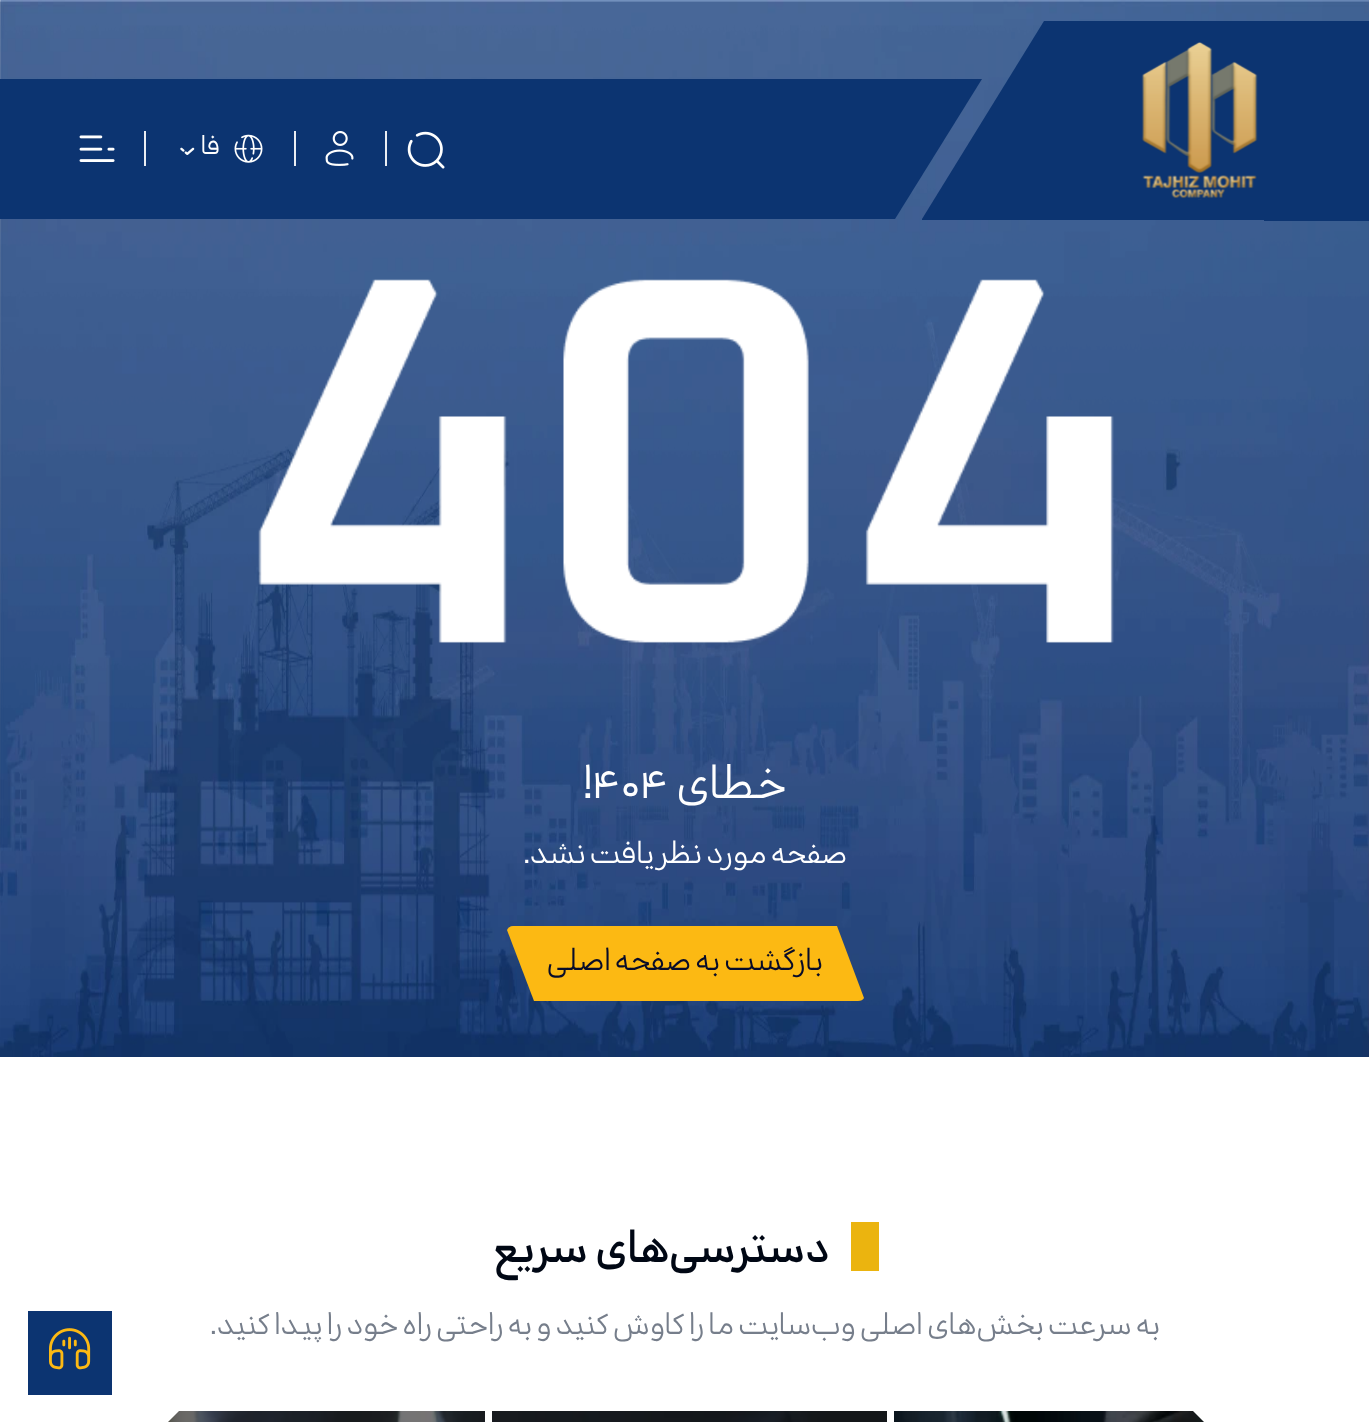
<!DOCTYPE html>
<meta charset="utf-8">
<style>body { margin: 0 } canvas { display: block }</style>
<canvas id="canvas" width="1369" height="1422"></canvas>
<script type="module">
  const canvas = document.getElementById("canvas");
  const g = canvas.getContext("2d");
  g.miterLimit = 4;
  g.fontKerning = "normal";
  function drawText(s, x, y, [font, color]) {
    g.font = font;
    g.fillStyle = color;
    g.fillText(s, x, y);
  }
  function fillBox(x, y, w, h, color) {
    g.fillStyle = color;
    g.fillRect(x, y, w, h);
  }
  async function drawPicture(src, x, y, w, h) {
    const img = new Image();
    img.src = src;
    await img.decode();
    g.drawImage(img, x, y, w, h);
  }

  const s1 = ["24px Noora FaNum", "#FFFFFF"];
  const s2 = ["42px Noora FaNum", "#FFFFFF"];
  const s3 = ["28px Noora FaNum", "#FFFFFF"];
  const s4 = ["28px Noora FaNum", "#080C29"];
  const s5 = ["bold 41px Noora FaNum", "#000714"];
  const s6 = ["27.4px Noora FaNum", "#767E8B"];

  fillBox(0, 0, 1369, 1422, "#FFFFFF");
  await drawPicture("pic7.png", 0, 0, 1369, 1057);
  g.fillStyle = "#0C3471";
  g.beginPath();
  g.moveTo(1044, 21);
  g.lineTo(922, 219);
  g.lineTo(922, 220);
  g.lineTo(1289, 220);
  g.lineTo(1289, 21);
  g.closePath();
  g.fill();
  fillBox(1264, 21, 105, 200, "#0C3471");
  await drawPicture("pic1.png", 1141, 42, 117, 158);
  g.beginPath();
  g.moveTo(-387, 79);
  g.lineTo(982, 79);
  g.lineTo(895, 219);
  g.lineTo(-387, 219);
  g.closePath();
  g.fill();
  await drawPicture("pic2.png", 407, 131, 38, 38);
  fillBox(385, 131, 2, 35, "#EAEDF3");
  await drawPicture("pic3.png", 325, 131, 29, 35);
  fillBox(294, 131, 2, 35, "#EAEDF3");
  await drawPicture("pic4.png", 234, 134, 29, 29);
  g.direction = "rtl";
  drawText("فا", 220, 154, s1);
  await drawPicture("pic5.png", 180, 147, 15, 8);
  fillBox(144, 131, 2, 35, "#EAEDF3");
  await drawPicture("pic6.png", 79, 135, 36, 27);
  await drawPicture("pic8.png", 258, 279, 856, 364);
  drawText("خطای", 787, 798, s2);
  g.direction = "ltr";
  drawText("!۴۰۴", 583, 798, s2);
  g.direction = "rtl";
  drawText("صفحه مورد نظر یافت نشد.", 847, 863, s3);
  g.fillStyle = "#FCB913";
  g.beginPath();
  g.moveTo(513, 926);
  g.bezierCurveTo(510, 926, 508, 928, 507, 930);
  g.lineTo(534, 1001);
  g.lineTo(858, 1001);
  g.bezierCurveTo(861, 1001, 863, 1000, 864, 998);
  g.lineTo(837, 926);
  g.closePath();
  g.fill();
  drawText("بازگشت به صفحه اصلی", 823, 970, s4);
  fillBox(851, 1222, 28, 49, "#EBB40F");
  drawText("دسترسی‌های سریع", 830, 1262, s5);
  drawText("به سرعت بخش‌های اصلی وب‌سایت ما را کاوش کنید و به راحتی راه خود را پیدا کنید.", 1160, 1334, s6);
  await drawPicture("pic9.png", 168, 1411, 1036, 11);
  g.save();
  g.beginPath();
  g.rect(82, 1411, 1208, 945);
  g.clip();
  g.fillStyle = "#FFFFFF";
  g.beginPath();
  g.moveTo(1290, 1312);
  g.lineTo(1290, 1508);
  g.lineTo(1192, 1410);
  g.closePath();
  g.fill();
  g.restore();
  fillBox(887, 1411, 7, 11, "#FFFFFF");
  fillBox(492, 1411, 395, 11, "rgba(26, 25, 25, 0.6)");
  fillBox(485, 1411, 7, 11, "#FFFFFF");
  fillBox(168, 1411, 317, 11, "rgba(26, 25, 25, 0.6)");
  g.save();
  g.beginPath();
  g.rect(82, 1411, 1208, 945);
  g.clip();
  g.fillStyle = "#FFFFFF";
  g.beginPath();
  g.moveTo(82, 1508);
  g.lineTo(82, 1410);
  g.lineTo(180, 1410);
  g.closePath();
  g.fill();
  g.restore();
  fillBox(28, 1311, 84, 84, "#0C3471");
  await drawPicture("pic10.png", 49, 1328, 42, 42);
</script>
